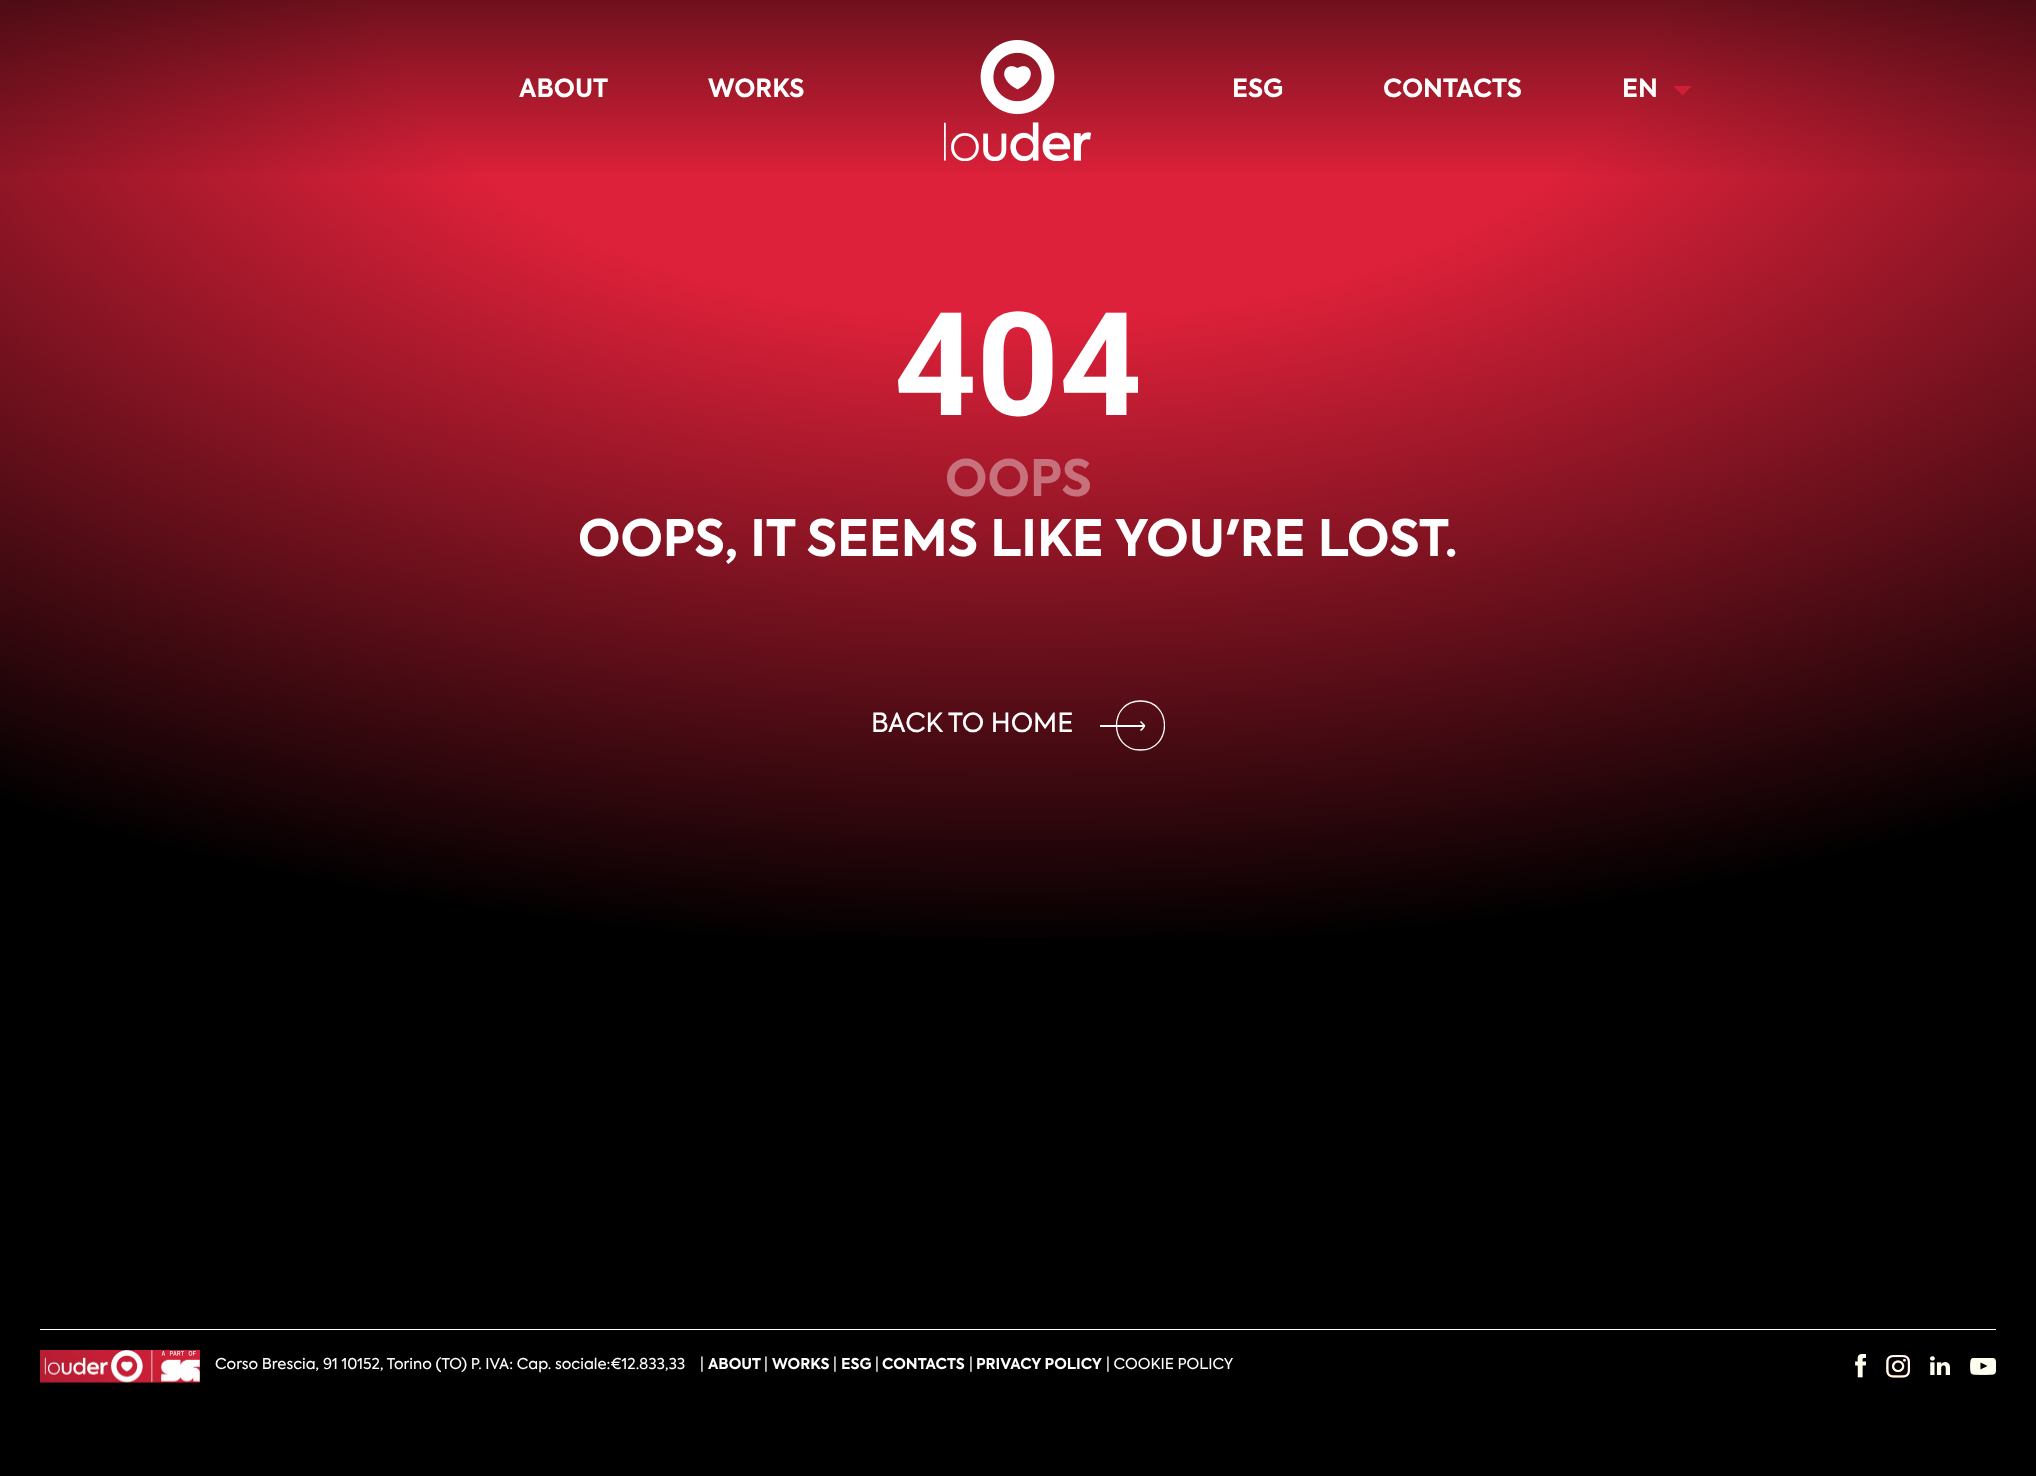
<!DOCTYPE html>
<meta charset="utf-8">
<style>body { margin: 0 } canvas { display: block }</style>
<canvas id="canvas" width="2036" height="1476"></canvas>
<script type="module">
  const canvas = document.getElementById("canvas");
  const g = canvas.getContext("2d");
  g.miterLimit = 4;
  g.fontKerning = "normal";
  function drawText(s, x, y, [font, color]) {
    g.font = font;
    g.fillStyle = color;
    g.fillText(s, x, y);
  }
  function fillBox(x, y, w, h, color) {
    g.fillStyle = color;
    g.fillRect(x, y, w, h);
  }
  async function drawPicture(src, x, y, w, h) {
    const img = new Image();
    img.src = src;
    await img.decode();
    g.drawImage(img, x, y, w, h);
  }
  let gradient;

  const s1 = ["bold 25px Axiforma", "#FFFFFF"];
  const s2 = ["bold 144px Roboto", "#FFFFFF"];
  const s3 = ["bold 50px Axiforma", "#C6717C"];
  const s4 = ["bold 50px Axiforma", "#FFFFFF"];
  const s5 = ["26.25px Axiforma", "#FFFFFF"];
  const s6 = ["14.9px Axiforma", "#FFFFFF"];
  const s7 = ["bold 14.9px Axiforma", "#FFFFFF"];

  fillBox(0, 0, 2036, 1476, "#000000");
  gradient = g.createRadialGradient(1019, 1.2, 0, 1019, 1.2, 2880);
  gradient.addColorStop(0.22, "#DE213A");
  gradient.addColorStop(0.66, "#000000");
  g.fillStyle = gradient;
  g.beginPath();
  g.rect(0, 0, 2036, 939);
  g.save();
  g.clip();
  g.scale(1, 1440 / 2880);
  g.fillRect(0, 0, 2036, 2952);
  g.restore();
  gradient = g.createLinearGradient(1018, 0, 1018, 181);
  gradient.addColorStop(0, "rgba(0, 0, 0, 0.5)");
  gradient.addColorStop(1, "rgba(0, 0, 0, 0)");
  g.fillStyle = gradient;
  g.fillRect(0, 0, 2036, 173);
  drawText("ABOUT", 519, 97, s1);
  drawText("WORKS", 708, 97, s1);
  await drawPicture("pic1.png", 944, 40, 147, 121);
  drawText("ESG", 1232, 97, s1);
  drawText("CONTACTS", 1383, 97, s1);
  drawText("EN", 1622, 97, s1);
  g.fillStyle = "rgba(222, 34, 60, 0.75)";
  g.beginPath();
  g.moveTo(1682.5, 95.5);
  g.lineTo(1673, 86);
  g.lineTo(1692, 86);
  g.closePath();
  g.fill();
  drawText("404", 894, 415, s2);
  drawText("OOPS", 945, 496, s3);
  drawText("OOPS, IT SEEMS LIKE YOU'RE LOST.", 578, 556, s4);
  drawText("BACK TO HOME", 871, 732, s5);
  g.save();
  g.beginPath();
  g.rect(1100, 693, 65, 66);
  g.clip();
  g.beginPath();
  g.moveTo(1140.5, 701);
  g.bezierCurveTo(1172.5, 701, 1172.5, 750, 1140.5, 750);
  g.bezierCurveTo(1108.5, 750, 1108.5, 701, 1140.5, 701);
  g.closePath();
  g.strokeStyle = "#FFFFFF";
  g.lineWidth = 1.3;
  g.stroke();
  g.restore();
  g.beginPath();
  g.moveTo(1145, 726);
  g.bezierCurveTo(1146, 726, 1145, 725, 1144, 724);
  g.lineTo(1141, 721);
  g.lineTo(1140, 722);
  g.lineTo(1144, 726);
  g.lineTo(1140, 730);
  g.lineTo(1141, 731);
  g.bezierCurveTo(1142, 731, 1145, 727, 1145, 726);
  g.closePath();
  g.moveTo(1100, 726);
  g.lineTo(1100, 727);
  g.lineTo(1145, 727);
  g.lineTo(1145, 725);
  g.lineTo(1100, 725);
  g.closePath();
  g.fill();
  fillBox(40, 1329, 1956, 1, "#FFFFFF");
  await drawPicture("pic2.png", 40, 1350, 160, 33);
  drawText("Corso Brescia, 91 10152, Torino (TO) P. IVA: Cap. sociale:€12.833,33", 215, 1369, s6);
  drawText("|", 700, 1369, s6);
  drawText("ABOUT", 708, 1369, s7);
  drawText("|", 764, 1369, s6);
  drawText("WORKS", 772, 1369, s7);
  drawText("|", 833, 1369, s6);
  drawText("ESG", 841, 1369, s7);
  drawText("|", 875, 1369, s6);
  drawText("CONTACTS", 882, 1369, s7);
  drawText("|", 969, 1369, s6);
  drawText("PRIVACY POLICY", 976, 1369, s7);
  drawText("| COOKIE POLICY", 1106, 1369, s6);
  await drawPicture("pic3.png", 1855, 1354, 11, 24);
  await drawPicture("pic4.png", 1886, 1355, 24, 23);
  await drawPicture("pic5.png", 1930, 1356, 20, 19);
  await drawPicture("pic6.png", 1970, 1358, 26, 17);
</script>
